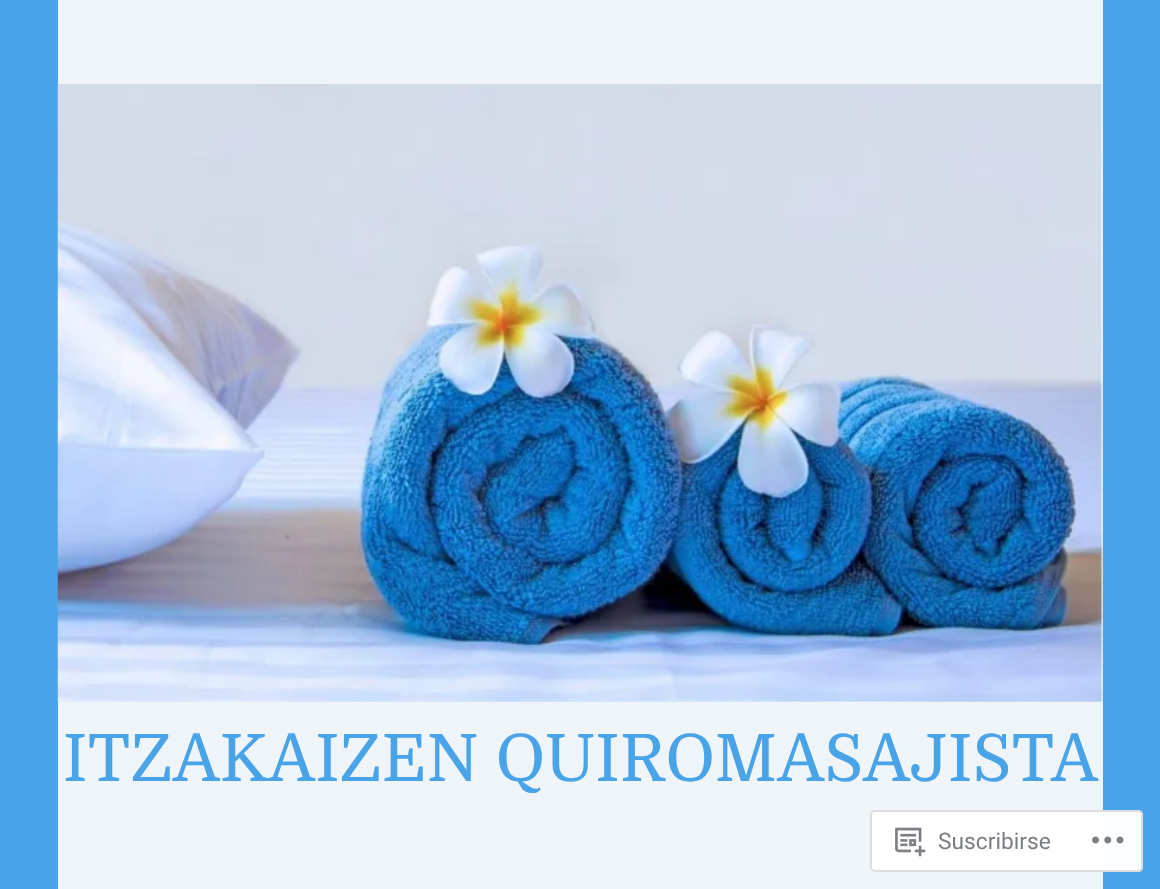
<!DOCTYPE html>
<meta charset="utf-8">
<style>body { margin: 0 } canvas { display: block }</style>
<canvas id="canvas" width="1160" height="889"></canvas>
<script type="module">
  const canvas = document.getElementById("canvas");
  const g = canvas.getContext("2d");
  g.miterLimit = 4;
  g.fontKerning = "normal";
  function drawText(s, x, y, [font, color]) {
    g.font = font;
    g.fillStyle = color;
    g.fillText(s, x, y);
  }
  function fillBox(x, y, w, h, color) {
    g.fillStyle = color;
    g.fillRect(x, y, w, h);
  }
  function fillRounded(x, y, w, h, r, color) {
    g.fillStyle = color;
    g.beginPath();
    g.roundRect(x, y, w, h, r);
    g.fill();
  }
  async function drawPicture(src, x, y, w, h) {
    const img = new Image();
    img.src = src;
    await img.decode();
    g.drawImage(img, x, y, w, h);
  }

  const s1 = ["65.3px Domine", "#49A3E8"];
  const s2 = ["22.75px Roboto", "#7A7E84"];

  fillBox(0, 0, 1160, 889, "#49A3E8");
  fillBox(58, 0, 1045, 889, "#EEF4F7");
  await drawPicture("pic1.png", 57, 84, 1046, 618);
  drawText("ITZAKAIZEN QUIROMASAJISTA", 63, 781, s1);
  fillRounded(870, 810, 273, 62, 5, "rgba(255, 255, 255, 0.98)");
  g.beginPath();
  g.roundRect(871, 811, 271, 60, 4);
  g.strokeStyle = "rgba(220, 220, 222, 0.98)";
  g.lineWidth = 2;
  g.stroke();
  await drawPicture("pic2.png", 895, 827, 31, 30);
  drawText("Suscribirse", 938, 849, s2);
  await drawPicture("pic3.png", 1092, 836, 32, 8);
</script>
